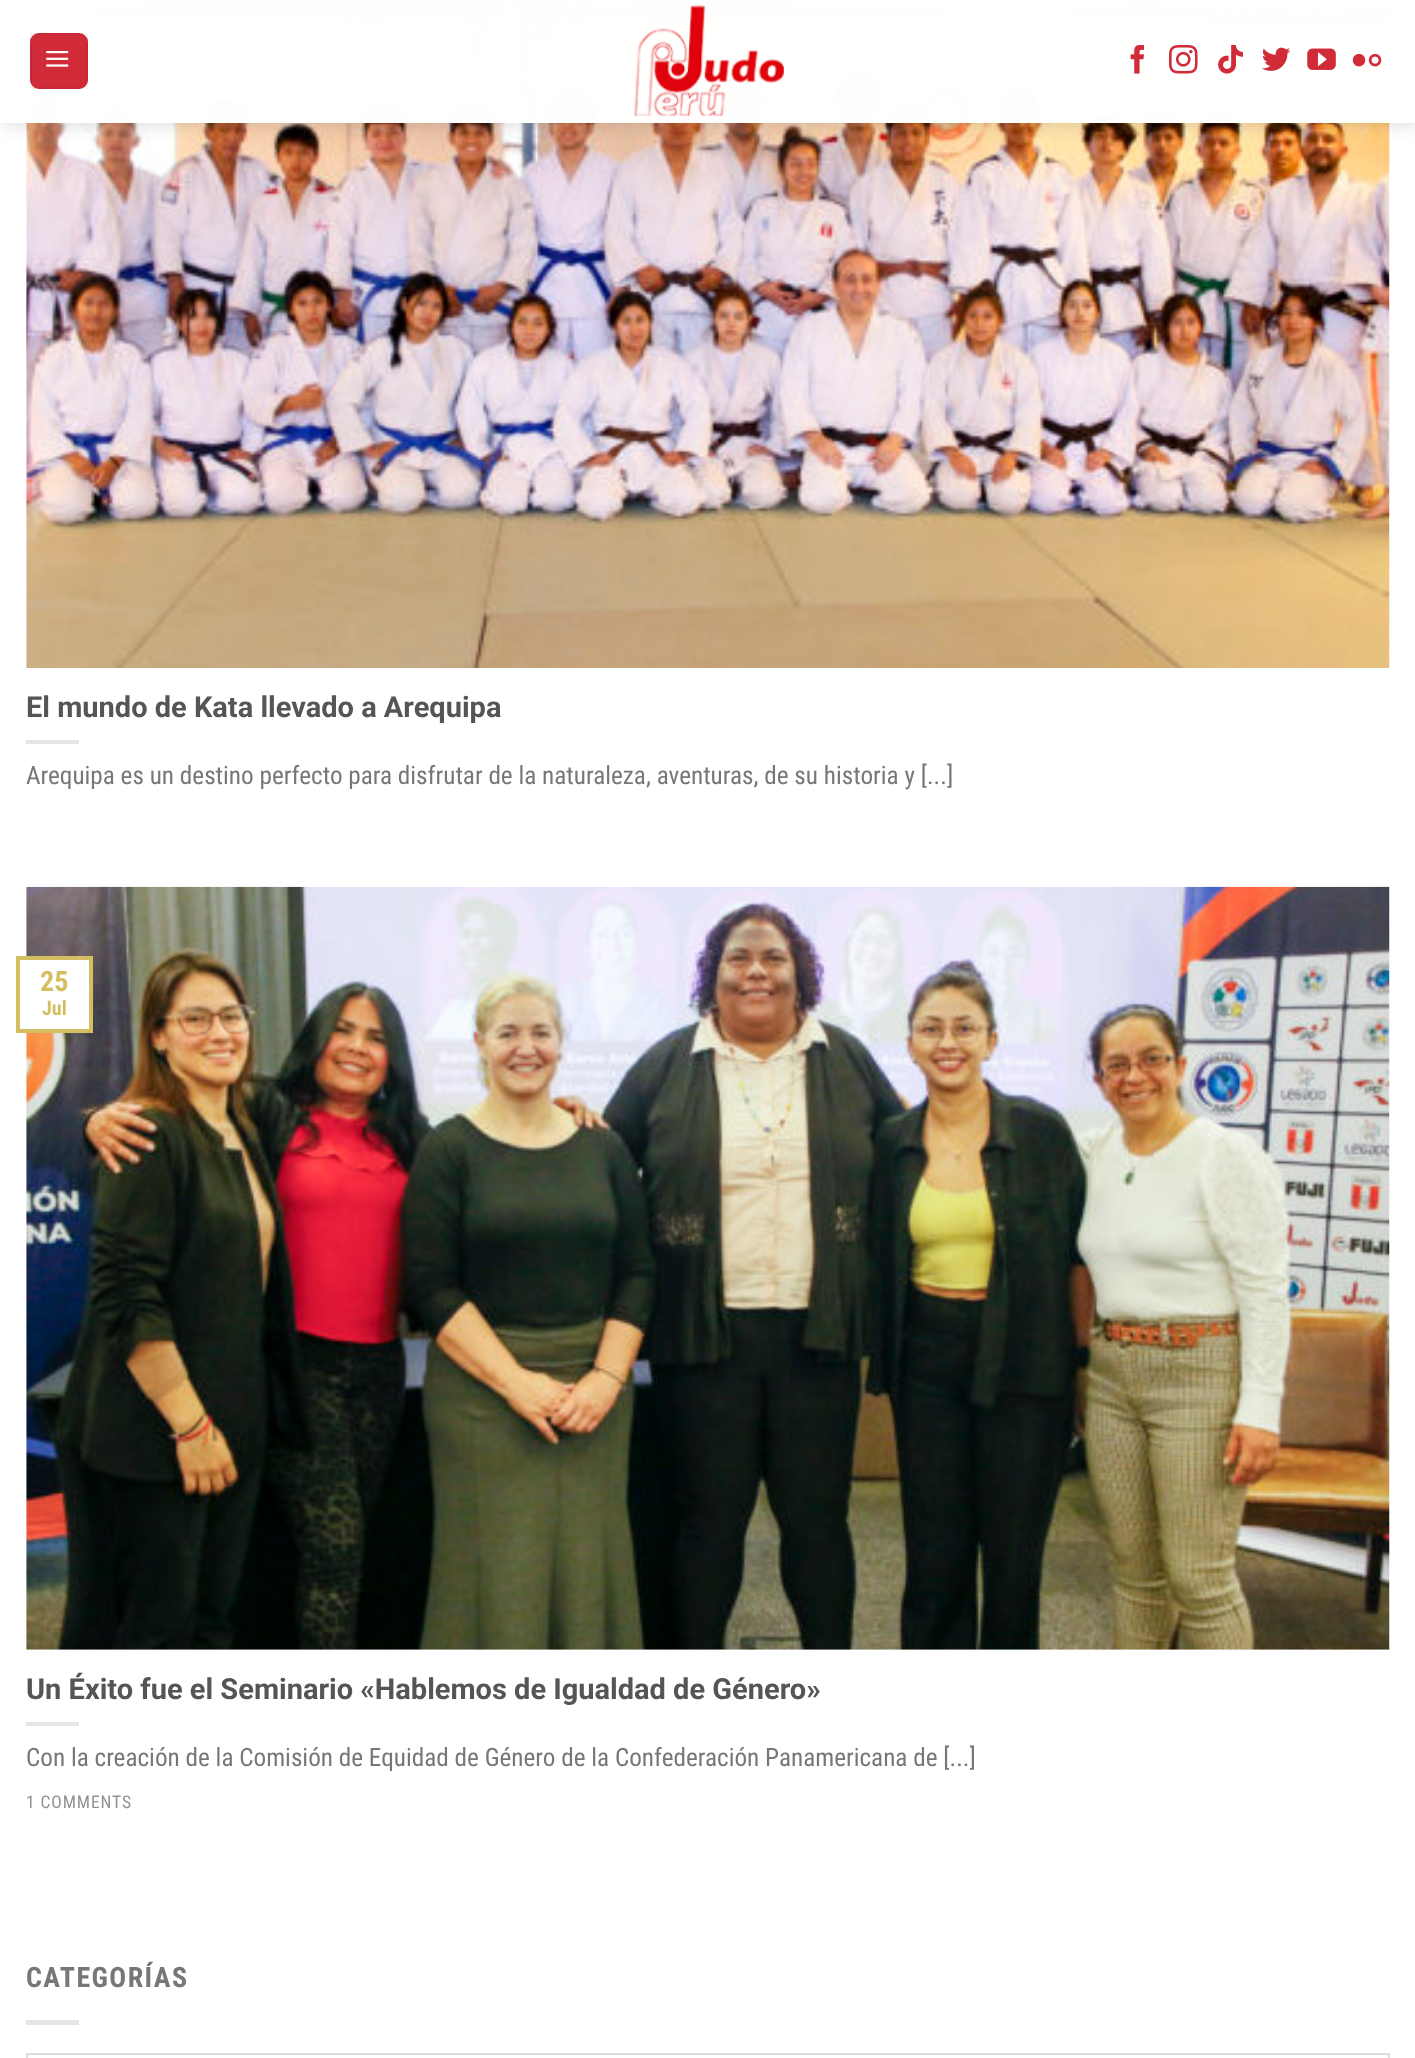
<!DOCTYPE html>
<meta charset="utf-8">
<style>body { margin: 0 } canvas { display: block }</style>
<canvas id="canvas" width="1415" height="2058"></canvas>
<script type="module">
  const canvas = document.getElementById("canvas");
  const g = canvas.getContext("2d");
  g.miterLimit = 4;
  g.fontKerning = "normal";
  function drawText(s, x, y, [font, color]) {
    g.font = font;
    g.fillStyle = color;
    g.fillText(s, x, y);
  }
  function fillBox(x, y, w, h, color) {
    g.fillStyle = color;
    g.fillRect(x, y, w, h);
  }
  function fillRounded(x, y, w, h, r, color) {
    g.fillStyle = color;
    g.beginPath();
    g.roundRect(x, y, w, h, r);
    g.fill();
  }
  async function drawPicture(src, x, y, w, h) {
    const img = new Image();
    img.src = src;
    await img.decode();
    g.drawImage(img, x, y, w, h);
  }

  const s1 = ["bold 29px Roboto", "#555555"];
  const s2 = ["25.2px Roboto Condensed", "#777777"];
  const s3 = ["bold 28px Roboto Condensed", "#D5BE62"];
  const s4 = ["bold 20px Roboto Condensed", "#D5BE62"];
  const s5 = ["17.5px Roboto Condensed", "#929292"];
  const s6 = ["bold 28px Roboto Condensed", "#777777"];

  fillBox(0, 0, 1415, 2058, "#FFFFFF");
  await drawPicture("pic9.png", 26, 0, 1364, 668);
  fillBox(26, 0, 63, 45, "#FFFFFF");
  g.strokeStyle = "#D5BE62";
  g.lineWidth = 4;
  g.strokeRect(18, -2, 73, 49);
  g.save();
  g.beginPath();
  g.moveTo(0, 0);
  g.lineTo(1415, 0);
  g.lineTo(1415, 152);
  g.lineTo(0, 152);
  g.closePath();
  g.moveTo(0, 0);
  g.lineTo(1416, 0);
  g.lineTo(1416, 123);
  g.lineTo(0, 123);
  g.closePath();
  g.clip("evenodd");
  g.fillStyle = "rgba(0, 0, 0, 0.15)";
  g.filter = "blur(9px)";
  g.beginPath();
  g.rect(2, 2, 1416, 122);
  g.fill();
  g.filter = "none";
  g.restore();
  fillBox(0, 0, 1415, 123, "rgba(255, 255, 255, 0.9)");
  fillBox(16, 0, 1374, 123, "rgba(255, 255, 255, 0.9)");
  fillRounded(30, 33, 58, 56, 9, "#D12B38");
  g.strokeStyle = "rgba(0, 0, 0, 0.05)";
  g.lineWidth = 2;
  g.strokeRect(31, 34, 56, 54);
  await drawPicture("pic1.png", 46, 51, 23, 16);
  await drawPicture("pic2.png", 634, 5, 150, 112);
  await drawPicture("pic3.png", 1130, 45, 14, 29);
  await drawPicture("pic4.png", 1169, 45, 29, 29);
  await drawPicture("pic5.png", 1218, 45, 25, 29);
  await drawPicture("pic6.png", 1262, 47, 29, 24);
  await drawPicture("pic7.png", 1307, 48, 29, 22);
  await drawPicture("pic8.png", 1352, 53, 30, 14);
  drawText("El mundo de Kata llevado a Arequipa", 26, 717, s1);
  fillBox(26, 740, 53, 4, "#E6E6E6");
  drawText("Arequipa es un destino perfecto para disfrutar de la naturaleza, aventuras, de su historia y [...]", 26, 784, s2);
  await drawPicture("pic10.png", 26, 886, 1364, 764);
  fillBox(26, 960, 63, 69, "#FFFFFF");
  g.strokeStyle = "#D5BE62";
  g.lineWidth = 4;
  g.strokeRect(18, 958, 73, 73);
  drawText("25", 40, 991, s3);
  drawText("Jul", 42, 1015, s4);
  drawText("Un Éxito fue el Seminario «Hablemos de Igualdad de Género»", 26, 1699, s1);
  fillBox(26, 1722, 53, 4, "#E6E6E6");
  drawText("Con la creación de la Comisión de Equidad de Género de la Confederación Panamericana de [...]", 26, 1766, s2);
  g.letterSpacing = "0.9px";
  drawText("1 COMMENTS", 26, 1808, s5);
  g.letterSpacing = "1.4px";
  drawText("CATEGORÍAS", 26, 1987, s6);
  fillBox(26, 2020, 53, 5, "#E6E6E6");
  g.strokeStyle = "#DDDDDD";
  g.lineWidth = 2;
  g.strokeRect(27, 2054, 1362, 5);
</script>
